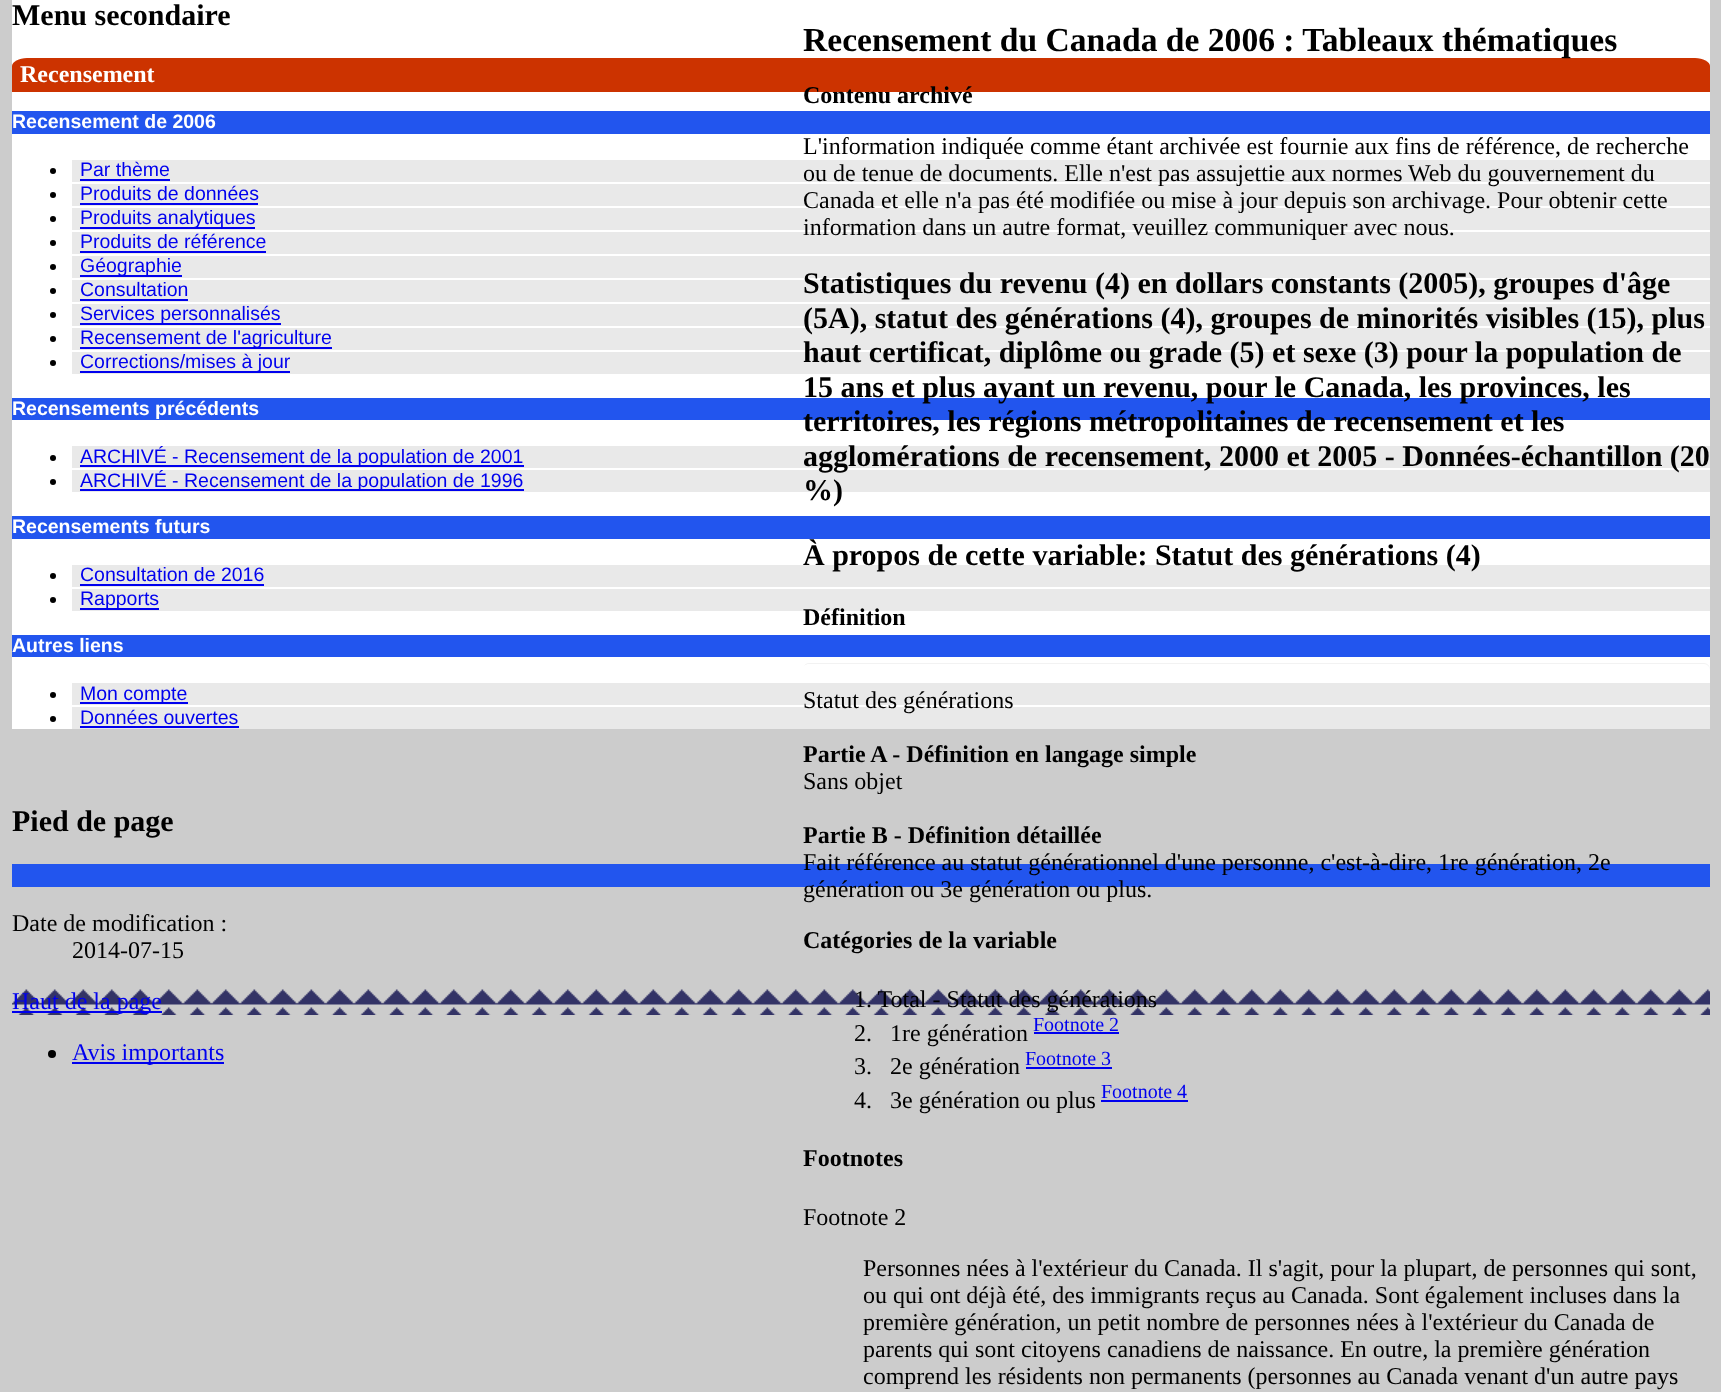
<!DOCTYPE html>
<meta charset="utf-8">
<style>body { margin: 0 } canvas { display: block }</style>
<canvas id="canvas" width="1721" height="1392"></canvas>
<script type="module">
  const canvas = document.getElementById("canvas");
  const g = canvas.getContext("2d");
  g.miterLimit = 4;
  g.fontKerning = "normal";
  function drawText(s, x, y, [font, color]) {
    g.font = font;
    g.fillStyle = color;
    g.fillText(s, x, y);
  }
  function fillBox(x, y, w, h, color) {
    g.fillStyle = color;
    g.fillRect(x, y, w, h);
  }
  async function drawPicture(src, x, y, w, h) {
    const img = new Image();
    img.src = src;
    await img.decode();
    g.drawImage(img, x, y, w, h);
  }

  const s1 = ["bold 30px Liberation Serif", "#000000"];
  const s2 = ["bold 24px Liberation Serif", "#FFFFFF"];
  const s3 = ["bold 19.5px Liberation Sans", "#FFFFFF"];
  const s4 = ["19.5px Liberation Sans", "#0000EE"];
  const s5 = ["bold 33.6px Liberation Serif", "#000000"];
  const s6 = ["bold 24px Liberation Serif", "#000000"];
  const s7 = ["24px Liberation Serif", "#000000"];
  const s8 = ["20px Liberation Serif", "#0000EE"];
  const s9 = ["24px Liberation Serif", "#0000EE"];

  fillBox(0, 0, 1721, 1392, "#CCCCCC");
  fillBox(12, 0, 1698, 729, "#FFFFFF");
  drawText("Menu secondaire", 12, 25, s1);
  g.fillStyle = "#CC3300";
  g.beginPath();
  g.moveTo(27, 58);
  g.lineTo(1695, 58);
  g.bezierCurveTo(1703, 58, 1710, 62, 1710, 66);
  g.lineTo(1710, 92);
  g.lineTo(12, 92);
  g.lineTo(12, 66);
  g.bezierCurveTo(12, 62, 19, 58, 27, 58);
  g.closePath();
  g.fill();
  drawText("Recensement", 20, 82, s2);
  fillBox(12, 111, 1698, 23, "#2255EE");
  drawText("Recensement de 2006", 12, 128, s3);
  fillBox(72, 160, 1638, 22, "#E9E9E9");
  g.fillStyle = "#000000";
  g.beginPath();
  g.arc(53, 171, 3, 0, Math.PI * 2);
  g.fill();
  drawText("Par thème", 80, 176, s4);
  fillBox(80, 179, 90, 2, "#0000EE");
  fillBox(72, 184, 1638, 22, "#E9E9E9");
  g.fillStyle = "#000000";
  g.beginPath();
  g.arc(53, 195, 3, 0, Math.PI * 2);
  g.fill();
  drawText("Produits de données", 80, 200, s4);
  fillBox(80, 203, 178, 2, "#0000EE");
  fillBox(72, 208, 1638, 22, "#E9E9E9");
  g.fillStyle = "#000000";
  g.beginPath();
  g.arc(53, 219, 3, 0, Math.PI * 2);
  g.fill();
  fillBox(80, 227, 175, 2, "#0000EE");
  drawText("Produits analytiques", 80, 224, s4);
  fillBox(72, 232, 1638, 22, "#E9E9E9");
  g.fillStyle = "#000000";
  g.beginPath();
  g.arc(53, 243, 3, 0, Math.PI * 2);
  g.fill();
  drawText("Produits de référence", 80, 248, s4);
  fillBox(80, 251, 186, 2, "#0000EE");
  fillBox(72, 256, 1638, 22, "#E9E9E9");
  g.fillStyle = "#000000";
  g.beginPath();
  g.arc(53, 267, 3, 0, Math.PI * 2);
  g.fill();
  fillBox(80, 275, 102, 2, "#0000EE");
  drawText("Géographie", 80, 272, s4);
  fillBox(72, 280, 1638, 22, "#E9E9E9");
  g.fillStyle = "#000000";
  g.beginPath();
  g.arc(53, 291, 3, 0, Math.PI * 2);
  g.fill();
  drawText("Consultation", 80, 296, s4);
  fillBox(80, 299, 108, 2, "#0000EE");
  fillBox(72, 304, 1638, 22, "#E9E9E9");
  g.fillStyle = "#000000";
  g.beginPath();
  g.arc(53, 315, 3, 0, Math.PI * 2);
  g.fill();
  fillBox(80, 323, 201, 2, "#0000EE");
  drawText("Services personnalisés", 80, 320, s4);
  fillBox(72, 328, 1638, 22, "#E9E9E9");
  g.fillStyle = "#000000";
  g.beginPath();
  g.arc(53, 339, 3, 0, Math.PI * 2);
  g.fill();
  fillBox(80, 347, 252, 2, "#0000EE");
  drawText("Recensement de l'agriculture", 80, 344, s4);
  fillBox(72, 352, 1638, 22, "#E9E9E9");
  g.fillStyle = "#000000";
  g.beginPath();
  g.arc(53, 363, 3, 0, Math.PI * 2);
  g.fill();
  fillBox(80, 371, 210, 2, "#0000EE");
  drawText("Corrections/mises à jour", 80, 368, s4);
  fillBox(12, 398, 1698, 22, "#2255EE");
  drawText("Recensements précédents", 12, 415, s3);
  fillBox(72, 446, 1638, 22, "#E9E9E9");
  g.fillStyle = "#000000";
  g.beginPath();
  g.arc(53, 458, 3, 0, Math.PI * 2);
  g.fill();
  fillBox(80, 465, 444, 2, "#0000EE");
  drawText("ARCHIVÉ - Recensement de la population de 2001", 80, 463, s4);
  fillBox(72, 470, 1638, 22, "#E9E9E9");
  g.fillStyle = "#000000";
  g.beginPath();
  g.arc(53, 482, 3, 0, Math.PI * 2);
  g.fill();
  fillBox(80, 489, 444, 2, "#0000EE");
  drawText("ARCHIVÉ - Recensement de la population de 1996", 80, 487, s4);
  fillBox(12, 516, 1698, 23, "#2255EE");
  drawText("Recensements futurs", 12, 533, s3);
  fillBox(72, 565, 1638, 22, "#E9E9E9");
  g.fillStyle = "#000000";
  g.beginPath();
  g.arc(53, 576, 3, 0, Math.PI * 2);
  g.fill();
  drawText("Consultation de 2016", 80, 581, s4);
  fillBox(80, 584, 184, 2, "#0000EE");
  fillBox(72, 589, 1638, 22, "#E9E9E9");
  g.fillStyle = "#000000";
  g.beginPath();
  g.arc(53, 600, 3, 0, Math.PI * 2);
  g.fill();
  fillBox(80, 608, 79, 2, "#0000EE");
  drawText("Rapports", 80, 605, s4);
  fillBox(12, 635, 1698, 22, "#2255EE");
  drawText("Autres liens", 12, 652, s3);
  fillBox(72, 683, 1638, 22, "#E9E9E9");
  g.fillStyle = "#000000";
  g.beginPath();
  g.arc(53, 695, 3, 0, Math.PI * 2);
  g.fill();
  fillBox(80, 702, 108, 2, "#0000EE");
  drawText("Mon compte", 80, 700, s4);
  fillBox(72, 707, 1638, 22, "#E9E9E9");
  g.fillStyle = "#000000";
  g.beginPath();
  g.arc(53, 719, 3, 0, Math.PI * 2);
  g.fill();
  drawText("Données ouvertes", 80, 724, s4);
  fillBox(80, 726, 159, 2, "#0000EE");
  drawText("Recensement du Canada de 2006 : Tableaux thématiques", 803, 51, s5);
  drawText("Contenu archivé", 803, 103, s6);
  drawText("L'information indiquée comme étant archivée est fournie aux fins de référence, de recherche", 803, 154, s7);
  drawText("ou de tenue de documents. Elle n'est pas assujettie aux normes Web du gouvernement du", 803, 181, s7);
  drawText("Canada et elle n'a pas été modifiée ou mise à jour depuis son archivage. Pour obtenir cette", 803, 208, s7);
  drawText("information dans un autre format, veuillez communiquer avec nous.", 803, 235, s7);
  drawText("Statistiques du revenu (4) en dollars constants (2005), groupes d'âge", 803, 293, s1);
  drawText("(5A), statut des générations (4), groupes de minorités visibles (15), plus", 803, 328, s1);
  drawText("haut certificat, diplôme ou grade (5) et sexe (3) pour la population de", 803, 362, s1);
  drawText("15 ans et plus ayant un revenu, pour le Canada, les provinces, les", 803, 397, s1);
  drawText("territoires, les régions métropolitaines de recensement et les", 803, 431, s1);
  drawText("agglomérations de recensement, 2000 et 2005 - Données-échantillon (20", 803, 466, s1);
  drawText("%)", 803, 500, s1);
  drawText("À propos de cette variable: Statut des générations (4)", 803, 565, s1);
  drawText("Définition", 803, 625, s6);
  g.fillStyle = "#F2F2F2";
  g.beginPath();
  g.moveTo(808, 664);
  g.lineTo(1704, 664);
  g.bezierCurveTo(1707, 664, 1710, 667, 1710, 670);
  g.lineTo(1710, 669);
  g.bezierCurveTo(1710, 666, 1707, 663, 1704, 663);
  g.lineTo(809, 663);
  g.bezierCurveTo(807, 663, 805, 664, 804, 666);
  g.bezierCurveTo(805, 665, 807, 664, 808, 664);
  g.closePath();
  g.fill();
  drawText("Statut des générations", 803, 708, s7);
  drawText("Partie A - Définition en langage simple", 803, 762, s6);
  drawText("Sans objet", 803, 789, s7);
  drawText("Partie B - Définition détaillée", 803, 843, s6);
  fillBox(12, 864, 1698, 23, "#2255EE");
  drawText("Fait référence au statut générationnel d'une personne, c'est-à-dire, 1re génération, 2e", 803, 870, s7);
  drawText("génération ou 3e génération ou plus.", 803, 897, s7);
  drawText("Catégories de la variable", 803, 948, s6);
  await drawPicture("pic1.png", 12, 989, 1698, 26);
  drawText("1. Total - Statut des générations", 854, 1007, s7);
  drawText("2.", 854, 1041, s7);
  drawText("1re génération", 890, 1041, s7);
  drawText("Footnote 2", 1033, 1031, s8);
  fillBox(1034, 1032, 85, 2, "#0000EE");
  drawText("3.", 854, 1074, s7);
  drawText("2e génération", 890, 1074, s7);
  drawText("Footnote 3", 1025, 1065, s8);
  fillBox(1026, 1067, 86, 2, "#0000EE");
  drawText("4.", 854, 1108, s7);
  drawText("3e génération ou plus", 890, 1108, s7);
  drawText("Footnote 4", 1101, 1098, s8);
  fillBox(1101, 1100, 87, 2, "#0000EE");
  drawText("Footnotes", 803, 1166, s6);
  drawText("Footnote 2", 803, 1225, s7);
  drawText("Personnes nées à l'extérieur du Canada. Il s'agit, pour la plupart, de personnes qui sont,", 863, 1276, s7);
  drawText("ou qui ont déjà été, des immigrants reçus au Canada. Sont également incluses dans la", 863, 1303, s7);
  drawText("première génération, un petit nombre de personnes nées à l'extérieur du Canada de", 863, 1330, s7);
  drawText("parents qui sont citoyens canadiens de naissance. En outre, la première génération", 863, 1357, s7);
  drawText("comprend les résidents non permanents (personnes au Canada venant d'un autre pays", 863, 1384, s7);
  drawText("Pied de page", 12, 831, s1);
  drawText("Date de modification :", 12, 931, s7);
  drawText("2014-07-15", 72, 958, s7);
  fillBox(12, 1011, 150, 2, "#0000EE");
  drawText("Haut de la page", 12, 1009, s9);
  g.fillStyle = "#000000";
  g.beginPath();
  g.arc(52, 1054, 4, 0, Math.PI * 2);
  g.fill();
  fillBox(72, 1062, 152, 2, "#0000EE");
  drawText("Avis importants", 72, 1060, s9);
</script>
